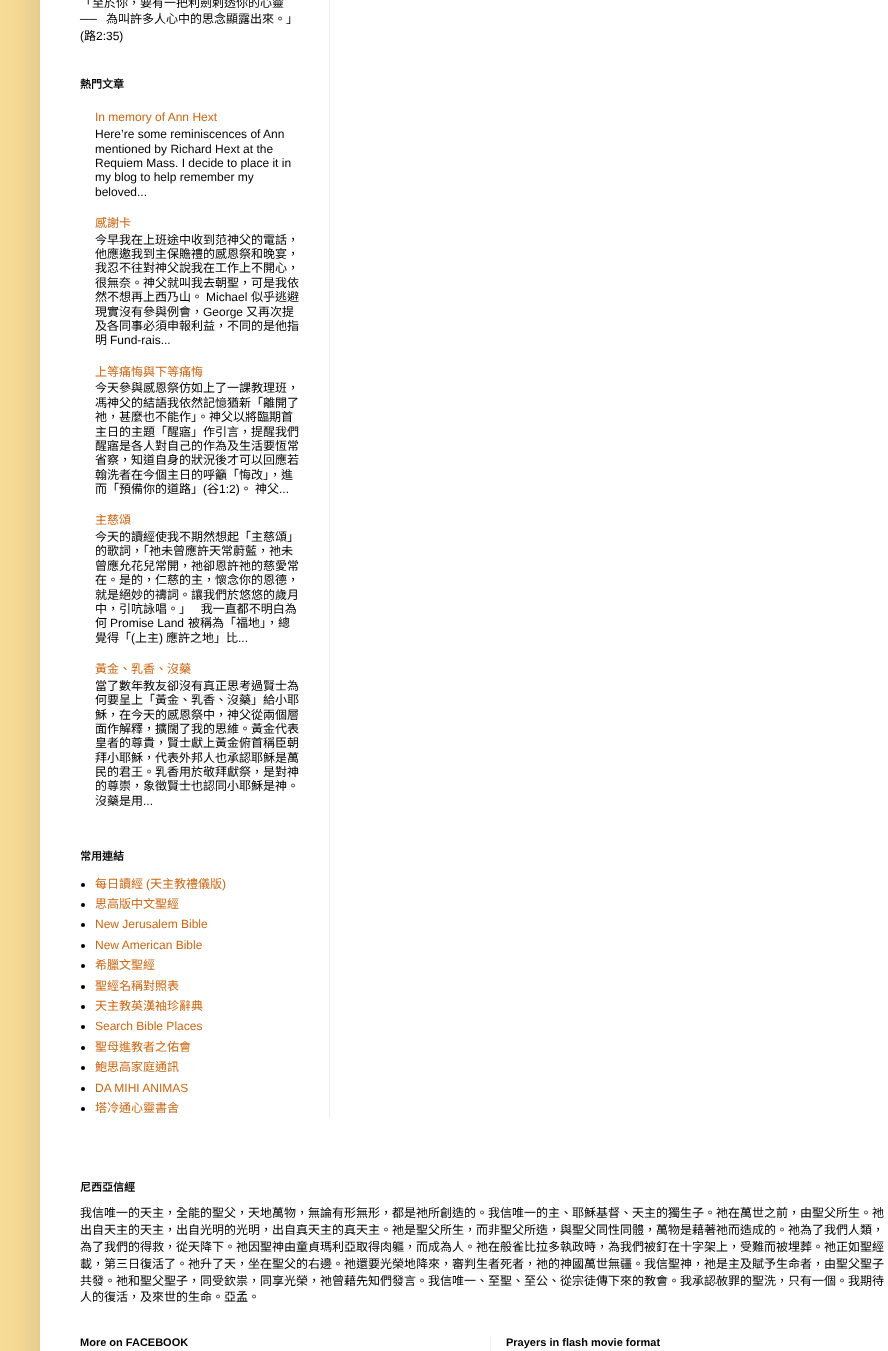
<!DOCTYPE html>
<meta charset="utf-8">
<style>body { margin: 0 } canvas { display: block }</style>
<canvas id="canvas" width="888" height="1351"></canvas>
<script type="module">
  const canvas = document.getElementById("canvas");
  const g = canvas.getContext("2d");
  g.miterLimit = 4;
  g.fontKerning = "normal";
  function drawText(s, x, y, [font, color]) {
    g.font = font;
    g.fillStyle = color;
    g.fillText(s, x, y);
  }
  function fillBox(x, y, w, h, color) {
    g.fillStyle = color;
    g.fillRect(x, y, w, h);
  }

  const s1 = ["12px Noto Sans CJK HK", "#000000"];
  const s2 = ["12px Liberation Sans", "#000000"];
  const s3 = ["bold 11px Noto Sans CJK HK", "#000000"];
  const s4 = ["12px Liberation Sans", "#CC6611"];
  const s5 = ["12px Noto Sans CJK HK", "#CC6611"];
  const s6 = ["bold 11px Liberation Sans", "#000000"];

  fillBox(0, 0, 888, 1351, "#F8DD99");
  g.fillStyle = "rgba(0, 0, 0, 0.15)";
  g.filter = "blur(20px)";
  g.beginPath();
  g.rect(40, -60, 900, 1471);
  g.fill();
  g.filter = "none";
  fillBox(40, 0, 848, 1351, "#FFFFFF");
  drawText("「至於你，要有一把利劍剌透你的心靈", 80, 7, s1);
  drawText("──", 80, 23, s2);
  drawText("為叫許多人心中的思念顯露出來。」", 106, 23, s1);
  drawText("(", 80, 40, s2);
  drawText("路", 84, 40, s1);
  drawText("2:35)", 96, 40, s2);
  drawText("熱門文章", 80, 88, s3);
  drawText("In memory of Ann Hext", 95, 121, s4);
  drawText("Here’re some reminiscences of Ann", 95, 138, s2);
  drawText("mentioned by Richard Hext at the", 95, 153, s2);
  drawText("Requiem Mass. I decide to place it in", 95, 167, s2);
  drawText("my blog to help remember my", 95, 181, s2);
  drawText("beloved...", 95, 196, s2);
  drawText("感謝卡", 95, 227, s5);
  drawText("今早我在上班途中收到范神父的電話，", 95, 244, s1);
  drawText("他應邀我到主保贍禮的感恩祭和晚宴，", 95, 258, s1);
  drawText("我忍不往對神父說我在工作上不開心，", 95, 272, s1);
  drawText("很無奈。神父就叫我去朝聖，可是我依", 95, 287, s1);
  drawText("然不想再上西乃山。", 95, 301, s1);
  drawText("Michael", 206, 301, s2);
  drawText("似乎逃避", 251, 301, s1);
  drawText("現實沒有參與例會，", 95, 316, s1);
  drawText("George", 203, 316, s2);
  drawText("又再次提", 246, 316, s1);
  drawText("及各同事必須申報利益，不同的是他指", 95, 330, s1);
  drawText("明", 95, 344, s1);
  drawText("Fund-rais...", 110, 344, s2);
  drawText("上等痛悔與下等痛悔", 95, 376, s5);
  drawText("今天參與感恩祭仿如上了一課教理班，", 95, 392, s1);
  drawText("馮神父的結語我依然記憶猶新「離開了", 95, 407, s1);
  drawText("祂，甚麼也不能作」。神父以將臨期首", 95, 421, s1);
  drawText("主日的主題「醒寤」作引言，提醒我們", 95, 436, s1);
  drawText("醒寤是各人對自己的作為及生活要恆常", 95, 450, s1);
  drawText("省察，知道自身的狀況後才可以回應若", 95, 464, s1);
  drawText("翰洗者在今個主日的呼籲「悔改」，進", 95, 479, s1);
  drawText("而「預備你的道路」", 95, 493, s1);
  drawText("(", 203, 493, s2);
  drawText("谷", 207, 493, s1);
  drawText("1:2)", 219, 493, s2);
  drawText("。", 240, 493, s1);
  drawText("神父", 255, 493, s1);
  drawText("...", 279, 493, s2);
  drawText("主慈頌", 95, 524, s5);
  drawText("今天的讀經使我不期然想起「主慈頌」", 95, 541, s1);
  drawText("的歌詞，「祂未曾應許天常蔚藍，祂未", 95, 555, s1);
  drawText("曾應允花兒常開，祂卻恩許祂的慈愛常", 95, 570, s1);
  drawText("在。是的，仁慈的主，懷念你的恩德，", 95, 584, s1);
  drawText("就是絕妙的禱詞。讓我們於悠悠的歲月", 95, 599, s1);
  g.wordSpacing = "7px";
  drawText("中，引吭詠唱。」 我一直都不明白為", 95, 613, s1);
  g.wordSpacing = "0px";
  drawText("何", 95, 627, s1);
  drawText("Promise Land", 110, 627, s2);
  drawText("被稱為「福地」，總", 188, 627, s1);
  drawText("覺得「", 95, 642, s1);
  drawText("(", 131, 642, s2);
  drawText("上主", 135, 642, s1);
  drawText(")", 159, 642, s2);
  drawText("應許之地」比", 166, 642, s1);
  drawText("...", 238, 642, s2);
  drawText("黃金、乳香、沒藥", 95, 673, s5);
  drawText("當了數年教友卻沒有真正思考過賢士為", 95, 690, s1);
  drawText("何要呈上「黃金、乳香、沒藥」給小耶", 95, 704, s1);
  drawText("穌，在今天的感恩祭中，神父從兩個層", 95, 719, s1);
  drawText("面作解釋，擴闊了我的思維。黃金代表", 95, 733, s1);
  drawText("皇者的尊貴，賢士獻上黃金俯首稱臣朝", 95, 747, s1);
  drawText("拜小耶穌，代表外邦人也承認耶穌是萬", 95, 762, s1);
  drawText("民的君王。乳香用於敬拜獻祭，是對神", 95, 776, s1);
  drawText("的尊崇，象徵賢士也認同小耶穌是神。", 95, 790, s1);
  drawText("沒藥是用", 95, 805, s1);
  drawText("...", 143, 805, s2);
  drawText("常用連結", 80, 860, s3);
  g.beginPath();
  g.arc(83, 885, 2, 0, Math.PI * 2);
  g.fill();
  drawText("每日讀經", 95, 888, s5);
  drawText("(", 146, 888, s4);
  drawText("天主教禮儀版", 150, 888, s5);
  drawText(")", 222, 888, s4);
  g.fillStyle = "#000000";
  g.beginPath();
  g.arc(83, 905, 2, 0, Math.PI * 2);
  g.fill();
  drawText("思高版中文聖經", 95, 908, s5);
  g.fillStyle = "#000000";
  g.beginPath();
  g.arc(83, 925, 2, 0, Math.PI * 2);
  g.fill();
  drawText("New Jerusalem Bible", 95, 928, s4);
  g.fillStyle = "#000000";
  g.beginPath();
  g.arc(83, 946, 2, 0, Math.PI * 2);
  g.fill();
  drawText("New American Bible", 95, 949, s4);
  g.fillStyle = "#000000";
  g.beginPath();
  g.arc(83, 966, 2, 0, Math.PI * 2);
  g.fill();
  drawText("希臘文聖經", 95, 969, s5);
  g.fillStyle = "#000000";
  g.beginPath();
  g.arc(83, 987, 2, 0, Math.PI * 2);
  g.fill();
  drawText("聖經名稱對照表", 95, 990, s5);
  g.fillStyle = "#000000";
  g.beginPath();
  g.arc(83, 1007, 2, 0, Math.PI * 2);
  g.fill();
  drawText("天主教英漢袖珍辭典", 95, 1010, s5);
  g.fillStyle = "#000000";
  g.beginPath();
  g.arc(83, 1027, 2, 0, Math.PI * 2);
  g.fill();
  drawText("Search Bible Places", 95, 1030, s4);
  g.fillStyle = "#000000";
  g.beginPath();
  g.arc(83, 1048, 2, 0, Math.PI * 2);
  g.fill();
  drawText("聖母進教者之佑會", 95, 1051, s5);
  g.fillStyle = "#000000";
  g.beginPath();
  g.arc(83, 1068, 2, 0, Math.PI * 2);
  g.fill();
  drawText("鮑思高家庭通訊", 95, 1071, s5);
  g.fillStyle = "#000000";
  g.beginPath();
  g.arc(83, 1089, 2, 0, Math.PI * 2);
  g.fill();
  drawText("DA MIHI ANIMAS", 95, 1092, s4);
  g.fillStyle = "#000000";
  g.beginPath();
  g.arc(83, 1109, 2, 0, Math.PI * 2);
  g.fill();
  drawText("塔冷通心靈書舍", 95, 1112, s5);
  fillBox(329, 0, 1, 1118, "#EEEEEE");
  drawText("尼西亞信經", 80, 1191, s3);
  drawText("我信唯一的天主，全能的聖父，天地萬物，無論有形無形，都是祂所創造的。我信唯一的主、耶穌基督、天主的獨生子。祂在萬世之前，由聖父所生。祂", 80, 1217, s1);
  drawText("出自天主的天主，出自光明的光明，出自真天主的真天主。祂是聖父所生，而非聖父所造，與聖父同性同體，萬物是藉著祂而造成的。祂為了我們人類，", 80, 1234, s1);
  drawText("為了我們的得救，從天降下。祂因聖神由童貞瑪利亞取得肉軀，而成為人。祂在般雀比拉多執政時，為我們被釘在十字架上，受難而被埋葬。祂正如聖經", 80, 1251, s1);
  drawText("載，第三日復活了。祂升了天，坐在聖父的右邊。祂還要光榮地降來，審判生者死者，祂的神國萬世無疆。我信聖神，祂是主及賦予生命者，由聖父聖子", 80, 1268, s1);
  drawText("共發。祂和聖父聖子，同受欽祟，同享光榮，祂曾藉先知們發言。我信唯一、至聖、至公、從宗徒傳下來的教會。我承認赦罪的聖洗，只有一個。我期待", 80, 1285, s1);
  drawText("人的復活，及來世的生命。亞孟。", 80, 1301, s1);
  drawText("More on FACEBOOK", 80, 1346, s6);
  fillBox(490, 1336, 1, 15, "#EEEEEE");
  drawText("Prayers in flash movie format", 506, 1346, s6);
</script>
